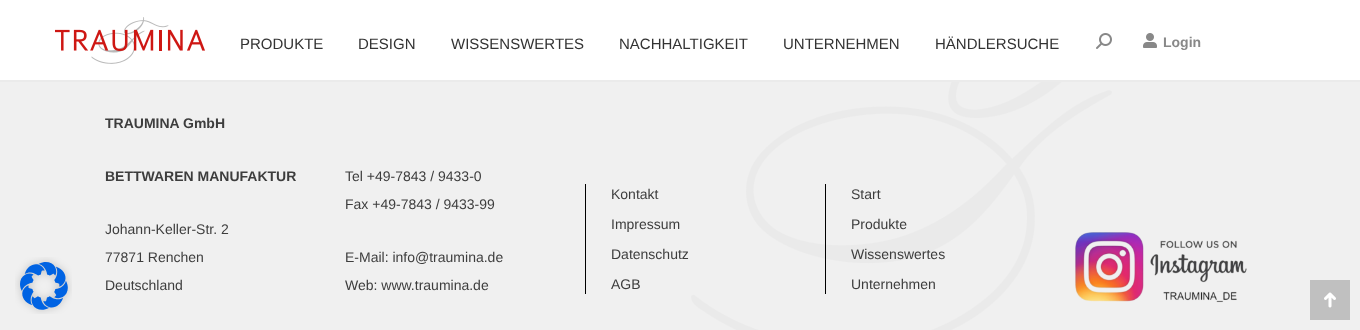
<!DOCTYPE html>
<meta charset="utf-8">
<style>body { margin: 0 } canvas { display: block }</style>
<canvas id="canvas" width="1360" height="330"></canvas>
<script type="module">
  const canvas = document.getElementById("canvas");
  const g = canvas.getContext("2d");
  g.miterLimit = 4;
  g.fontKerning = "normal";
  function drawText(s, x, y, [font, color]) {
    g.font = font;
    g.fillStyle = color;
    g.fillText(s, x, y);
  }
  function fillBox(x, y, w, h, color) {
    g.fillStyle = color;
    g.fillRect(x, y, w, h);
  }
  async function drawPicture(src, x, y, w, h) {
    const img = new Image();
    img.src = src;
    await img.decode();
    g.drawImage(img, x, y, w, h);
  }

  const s1 = ["15px Liberation Sans", "#333333"];
  const s2 = ["bold 14px Liberation Sans", "#888888"];
  const s3 = ["bold 14px Liberation Sans", "#3D3D3D"];
  const s4 = ["14px Liberation Sans", "#3D3D3D"];

  fillBox(0, 0, 1360, 330, "#F0F0F0");
  await drawPicture("pic1.png", 15, 257, 57, 57);
  fillBox(0, 0, 1360, 80, "#FFFFFF");
  fillBox(0, 80, 1360, 2, "#EBEBEB");
  await drawPicture("pic2.png", 55, 17, 150, 47);
  drawText("PRODUKTE", 240, 49, s1);
  drawText("DESIGN", 358, 49, s1);
  drawText("WISSENSWERTES", 451, 49, s1);
  drawText("NACHHALTIGKEIT", 619, 49, s1);
  drawText("UNTERNEHMEN", 783, 49, s1);
  drawText("HÄNDLERSUCHE", 935, 49, s1);
  await drawPicture("pic3.png", 1096, 33, 16, 16);
  await drawPicture("pic4.png", 1143, 33, 14, 15);
  drawText("Login", 1163, 47, s2);
  await drawPicture("pic5.png", 691, 82, 421, 248);
  drawText("TRAUMINA GmbH", 105, 128, s3);
  drawText("BETTWAREN MANUFAKTUR", 105, 181, s3);
  drawText("Johann-Keller-Str. 2", 105, 234, s4);
  drawText("77871 Renchen", 105, 262, s4);
  drawText("Deutschland", 105, 290, s4);
  drawText("Tel +49-7843 / 9433-0", 345, 181, s4);
  drawText("Fax +49-7843 / 9433-99", 345, 209, s4);
  drawText("E-Mail: info@traumina.de", 345, 262, s4);
  drawText("Web: www.traumina.de", 345, 290, s4);
  fillBox(585, 184, 1, 110, "#000000");
  drawText("Kontakt", 611, 199, s4);
  drawText("Impressum", 611, 229, s4);
  drawText("Datenschutz", 611, 259, s4);
  drawText("AGB", 611, 289, s4);
  fillBox(825, 184, 1, 110, "#000000");
  drawText("Start", 851, 199, s4);
  drawText("Produkte", 851, 229, s4);
  drawText("Wissenswertes", 851, 259, s4);
  drawText("Unternehmen", 851, 289, s4);
  await drawPicture("pic6.png", 1075, 232, 172, 71);
  fillBox(1310, 280, 40, 40, "#C0C0C0");
  await drawPicture("pic7.png", 1324, 292, 12, 16);
</script>
